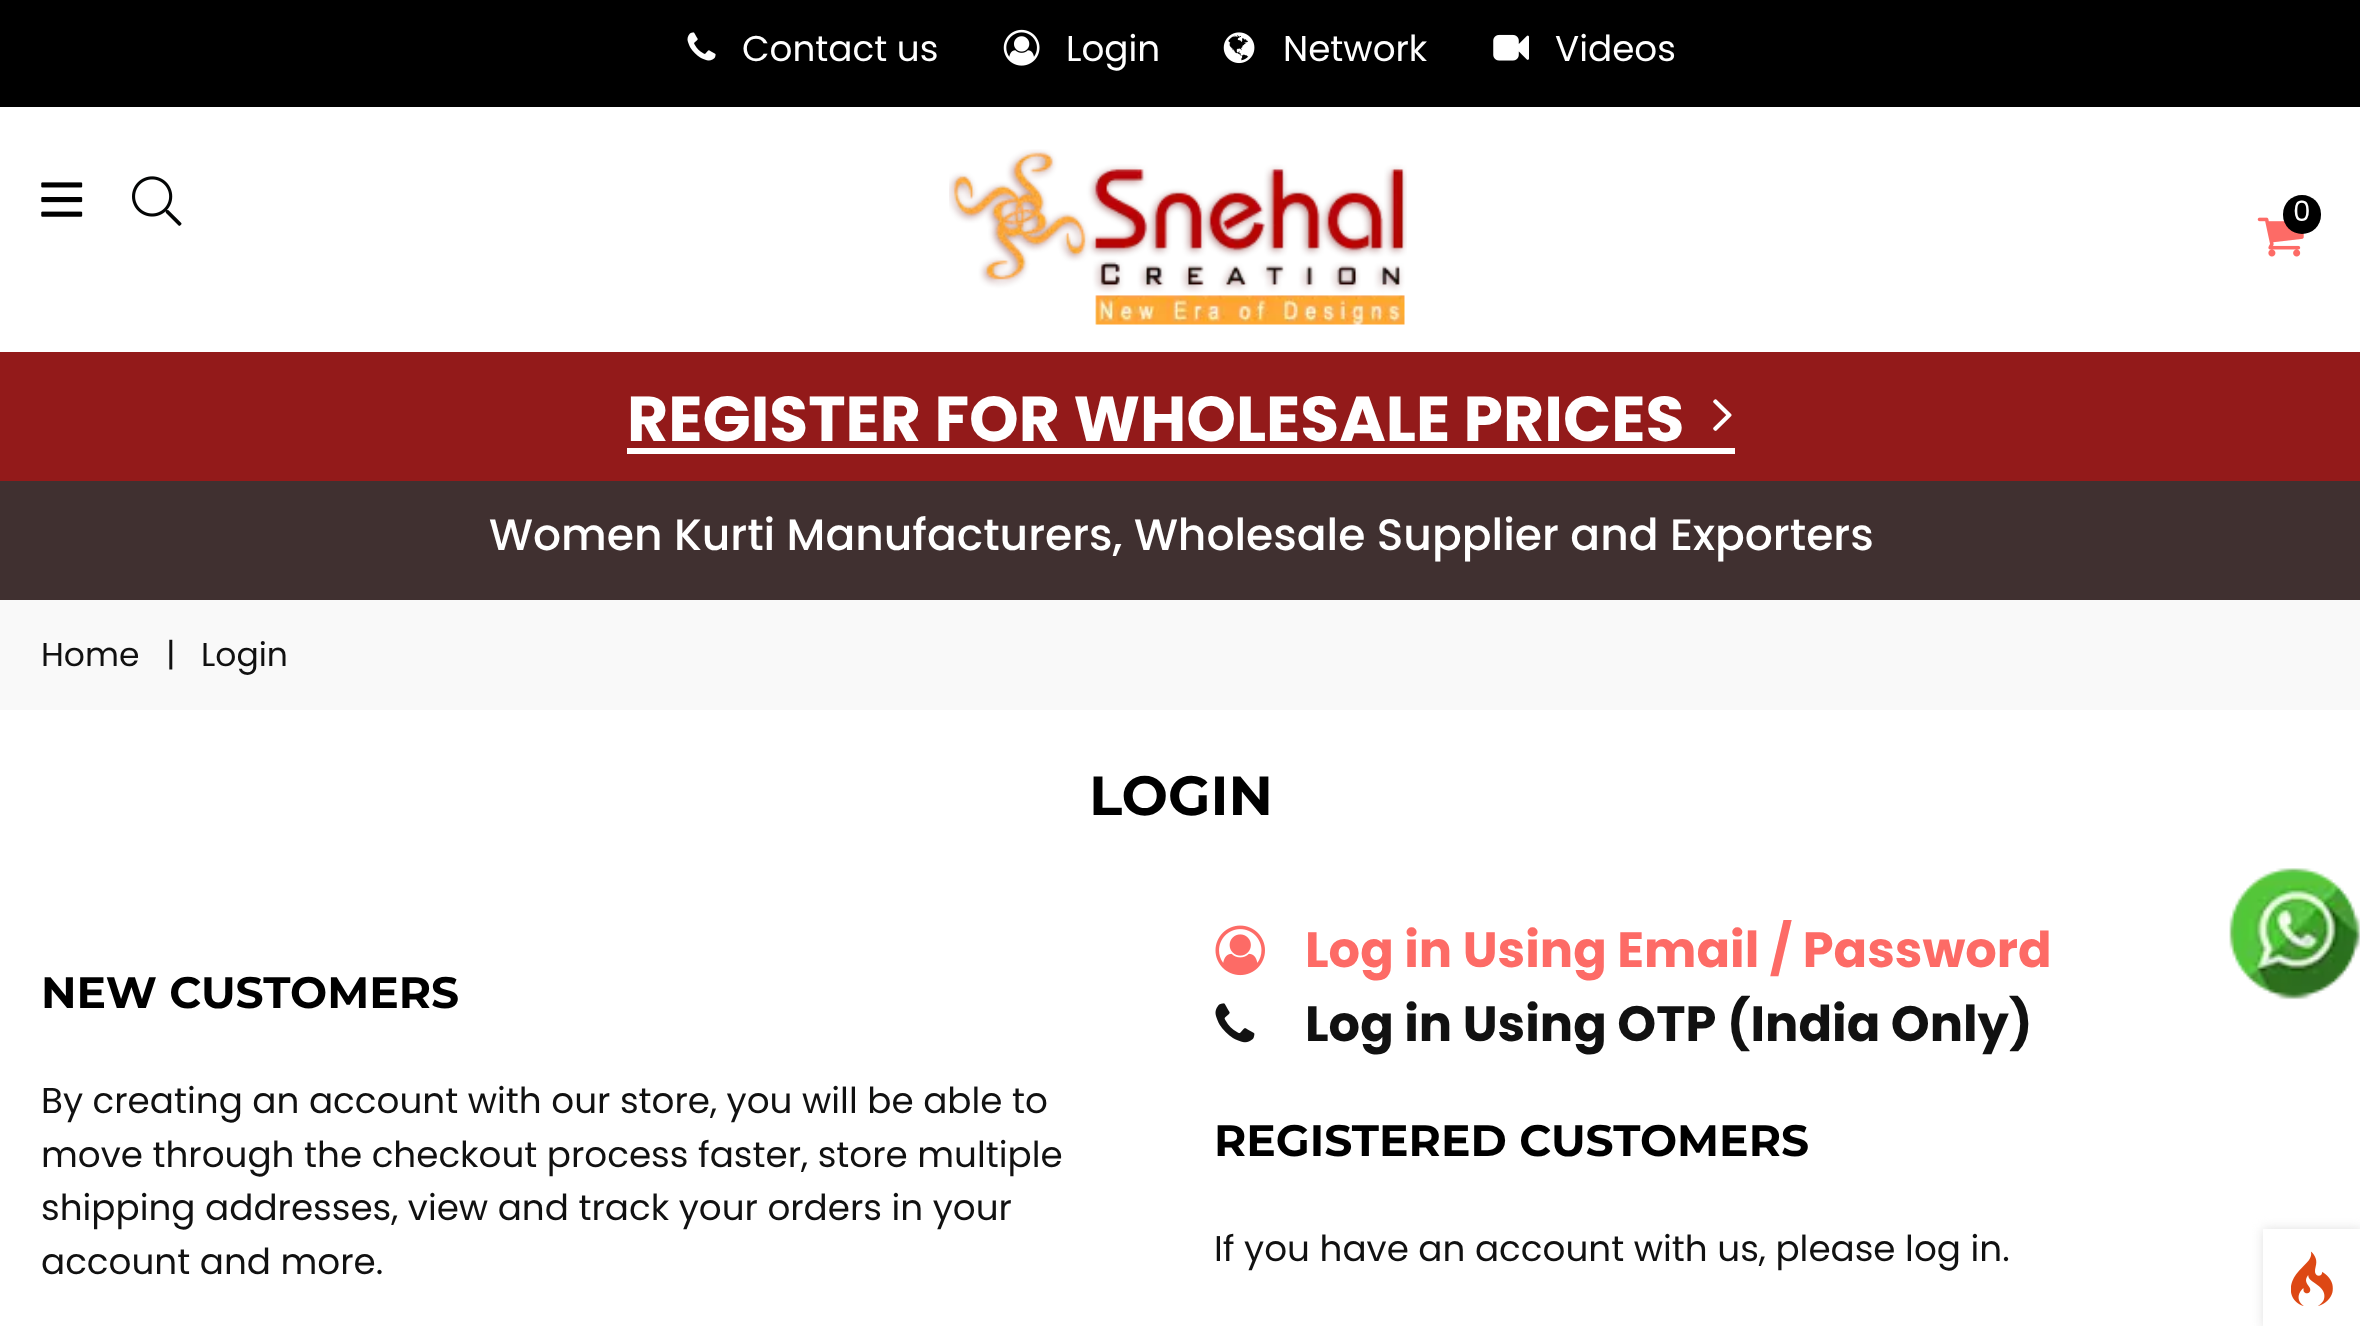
<!DOCTYPE html>
<meta charset="utf-8">
<style>body { margin: 0 } canvas { display: block }</style>
<canvas id="canvas" width="2360" height="1326"></canvas>
<script type="module">
  const canvas = document.getElementById("canvas");
  const g = canvas.getContext("2d");
  g.miterLimit = 4;
  g.fontKerning = "normal";
  function drawText(s, x, y, [font, color]) {
    g.font = font;
    g.fillStyle = color;
    g.fillText(s, x, y);
  }
  function fillBox(x, y, w, h, color) {
    g.fillStyle = color;
    g.fillRect(x, y, w, h);
  }
  function fillRounded(x, y, w, h, r, color) {
    g.fillStyle = color;
    g.beginPath();
    g.roundRect(x, y, w, h, r);
    g.fill();
  }
  async function drawPicture(src, x, y, w, h) {
    const img = new Image();
    img.src = src;
    await img.decode();
    g.drawImage(img, x, y, w, h);
  }

  const s1 = ["35.75px Poppins", "#FFFFFF"];
  const s2 = ["28px Poppins", "#FFFFFF"];
  const s3 = ["bold 63.25px Poppins", "#FFFFFF"];
  const s4 = ["500 44px Poppins", "#FFFFFF"];
  const s5 = ["33px Poppins", "#111111"];
  const s6 = ["bold 55px Montserrat", "#000000"];
  const s7 = ["bold 44px Montserrat", "#000000"];
  const s8 = ["35.75px Poppins", "#111111"];
  const s9 = ["bold 49.5px Poppins", "#FD6B66"];
  const s10 = ["bold 49.5px Poppins", "#111111"];

  fillBox(0, 0, 2360, 1326, "#FFFFFF");
  fillBox(0, 0, 2360, 107, "#000000");
  await drawPicture("pic1.png", 687, 32, 29, 29);
  drawText("Contact us", 742, 61, s1);
  await drawPicture("pic2.png", 1003, 29, 37, 37);
  drawText("Login", 1066, 61, s1);
  await drawPicture("pic3.png", 1223, 32, 32, 32);
  drawText("Network", 1283, 61, s1);
  await drawPicture("pic4.png", 1493, 34, 36, 27);
  drawText("Videos", 1555, 61, s1);
  await drawPicture("pic5.png", 41, 182, 42, 35);
  await drawPicture("pic6.png", 132, 176, 50, 50);
  await drawPicture("pic7.png", 949, 149, 458, 176);
  await drawPicture("pic8.png", 2257, 217, 47, 40);
  fillRounded(2283, 195, 38, 39, 19, "#000000");
  drawText("0", 2293, 221, s2);
  fillBox(0, 352, 2360, 129, "#931A1A");
  drawText("REGISTER FOR WHOLESALE PRICES", 627, 441, s3);
  fillBox(627, 448, 1108, 6, "#FFFFFF");
  await drawPicture("pic9.png", 1713, 399, 19, 32);
  fillBox(0, 481, 2360, 119, "#403030");
  drawText("Women Kurti Manufacturers, Wholesale Supplier and Exporters", 489, 550, s4);
  fillBox(0, 600, 2360, 110, "#F9F9F9");
  drawText("Home", 41, 666, s5);
  drawText("|", 166, 666, s5);
  drawText("Login", 201, 666, s5);
  drawText("LOGIN", 1089, 815, s6);
  drawText("NEW CUSTOMERS", 41, 1008, s7);
  drawText("By creating an account with our store, you will be able to", 41, 1113, s8);
  drawText("move through the checkout process faster, store multiple", 41, 1167, s8);
  drawText("shipping addresses, view and track your orders in your", 41, 1220, s8);
  drawText("account and more.", 41, 1274, s8);
  await drawPicture("pic10.png", 1215, 925, 50, 51);
  drawText("Log in Using Email / Password", 1305, 967, s9);
  await drawPicture("pic11.png", 1215, 1003, 40, 40);
  drawText("Log in Using OTP (India Only)", 1305, 1041, s10);
  drawText("REGISTERED CUSTOMERS", 1214, 1156, s7);
  drawText("If you have an account with us, please log in.", 1214, 1261, s8);
  await drawPicture("pic12.png", 2229, 868, 131, 132);
  g.fillStyle = "#DFDFDF";
  g.filter = "blur(5.5px)";
  g.beginPath();
  g.rect(2263, 1229, 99, 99);
  g.fill();
  g.filter = "none";
  fillBox(2263, 1229, 97, 97, "#FFFFFF");
  await drawPicture("pic13.png", 2291, 1251, 42, 55);
</script>
